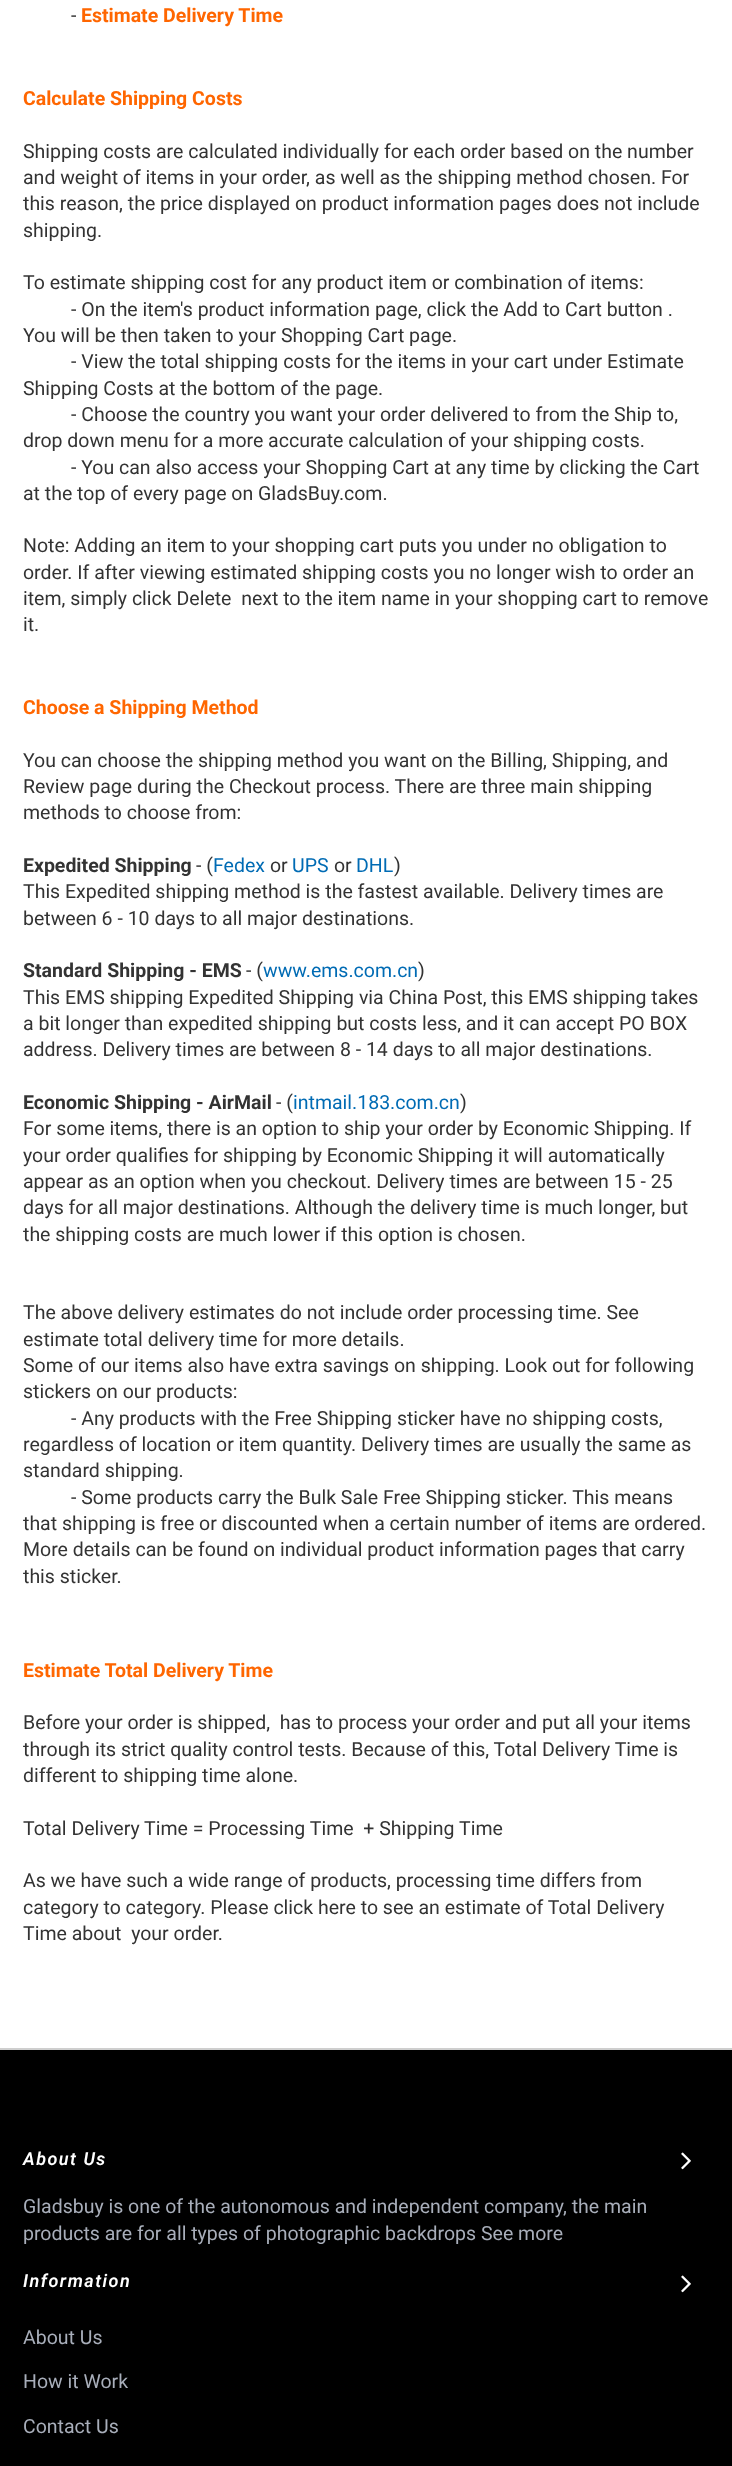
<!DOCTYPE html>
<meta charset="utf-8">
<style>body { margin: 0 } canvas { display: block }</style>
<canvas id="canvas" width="732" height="2466"></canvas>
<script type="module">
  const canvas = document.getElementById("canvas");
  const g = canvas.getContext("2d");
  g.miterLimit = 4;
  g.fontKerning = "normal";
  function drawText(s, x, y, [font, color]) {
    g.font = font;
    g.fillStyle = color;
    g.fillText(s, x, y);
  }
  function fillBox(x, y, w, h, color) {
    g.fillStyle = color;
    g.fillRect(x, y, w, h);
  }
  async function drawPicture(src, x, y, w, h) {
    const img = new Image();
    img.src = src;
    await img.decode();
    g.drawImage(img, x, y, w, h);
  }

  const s1 = ["19.5px Roboto", "#333333"];
  const s2 = ["bold 19.5px Roboto", "#FF6600"];
  const s3 = ["bold 19.5px Roboto", "#333333"];
  const s4 = ["19.5px Roboto", "#006BB4"];
  const s5 = ["italic 600 18px Roboto", "#FFFFFF"];
  const s6 = ["19.5px Roboto", "#A8AEBA"];

  fillBox(0, 0, 732, 2466, "#FFFFFF");
  drawText("-", 71, 22, s1);
  drawText("Estimate Delivery Time", 81, 22, s2);
  drawText("Calculate Shipping Costs", 23, 105, s2);
  drawText("Shipping costs are calculated individually for each order based on the number", 23, 158, s1);
  drawText("and weight of items in your order, as well as the shipping method chosen. For", 23, 184, s1);
  drawText("this reason, the price displayed on product information pages does not include", 23, 210, s1);
  drawText("shipping.", 23, 237, s1);
  drawText("To estimate shipping cost for any product item or combination of items:", 23, 289, s1);
  drawText("- On the item's product information page, click the Add to Cart button .", 71, 316, s1);
  drawText("You will be then taken to your Shopping Cart page.", 23, 342, s1);
  drawText("- View the total shipping costs for the items in your cart under Estimate", 71, 368, s1);
  drawText("Shipping Costs at the bottom of the page.", 23, 395, s1);
  drawText("- Choose the country you want your order delivered to from the Ship to,", 71, 421, s1);
  drawText("drop down menu for a more accurate calculation of your shipping costs.", 23, 447, s1);
  drawText("- You can also access your Shopping Cart at any time by clicking the Cart", 71, 474, s1);
  drawText("at the top of every page on GladsBuy.com.", 23, 500, s1);
  drawText("Note: Adding an item to your shopping cart puts you under no obligation to", 23, 552, s1);
  drawText("order. If after viewing estimated shipping costs you no longer wish to order an", 23, 579, s1);
  drawText("item, simply click Delete  next to the item name in your shopping cart to remove", 23, 605, s1);
  drawText("it.", 23, 631, s1);
  drawText("Choose a Shipping Method", 23, 714, s2);
  drawText("You can choose the shipping method you want on the Billing, Shipping, and", 23, 767, s1);
  drawText("Review page during the Checkout process. There are three main shipping", 23, 793, s1);
  drawText("methods to choose from:", 23, 819, s1);
  drawText("Expedited Shipping", 23, 872, s3);
  drawText("- (", 196, 872, s1);
  drawText("Fedex", 213, 872, s4);
  drawText("or", 270, 872, s1);
  drawText("UPS", 292, 872, s4);
  drawText("or", 334, 872, s1);
  drawText("DHL", 356, 872, s4);
  drawText(")", 394, 872, s1);
  drawText("This Expedited shipping method is the fastest available. Delivery times are", 23, 898, s1);
  drawText("between 6 - 10 days to all major destinations.", 23, 925, s1);
  drawText("Standard Shipping - EMS", 23, 977, s3);
  drawText("- (", 246, 977, s1);
  drawText("www.ems.com.cn", 263, 977, s4);
  drawText(")", 418, 977, s1);
  drawText("This EMS shipping Expedited Shipping via China Post, this EMS shipping takes", 23, 1004, s1);
  drawText("a bit longer than expedited shipping but costs less, and it can accept PO BOX", 23, 1030, s1);
  drawText("address. Delivery times are between 8 - 14 days to all major destinations.", 23, 1056, s1);
  drawText("Economic Shipping - AirMail", 23, 1109, s3);
  drawText("- (", 276, 1109, s1);
  drawText("intmail.183.com.cn", 293, 1109, s4);
  drawText(")", 460, 1109, s1);
  drawText("For some items, there is an option to ship your order by Economic Shipping. If", 23, 1135, s1);
  drawText("your order qualifies for shipping by Economic Shipping it will automatically", 23, 1162, s1);
  drawText("appear as an option when you checkout. Delivery times are between 15 - 25", 23, 1188, s1);
  drawText("days for all major destinations. Although the delivery time is much longer, but", 23, 1214, s1);
  drawText("the shipping costs are much lower if this option is chosen.", 23, 1241, s1);
  drawText("The above delivery estimates do not include order processing time. See", 23, 1319, s1);
  drawText("estimate total delivery time for more details.", 23, 1346, s1);
  drawText("Some of our items also have extra savings on shipping. Look out for following", 23, 1372, s1);
  drawText("stickers on our products:", 23, 1398, s1);
  drawText("- Any products with the Free Shipping sticker have no shipping costs,", 71, 1425, s1);
  drawText("regardless of location or item quantity. Delivery times are usually the same as", 23, 1451, s1);
  drawText("standard shipping.", 23, 1477, s1);
  drawText("- Some products carry the Bulk Sale Free Shipping sticker. This means", 71, 1504, s1);
  drawText("that shipping is free or discounted when a certain number of items are ordered.", 23, 1530, s1);
  drawText("More details can be found on individual product information pages that carry", 23, 1556, s1);
  drawText("this sticker.", 23, 1583, s1);
  drawText("Estimate Total Delivery Time", 23, 1677, s2);
  drawText("Before your order is shipped,  has to process your order and put all your items", 23, 1729, s1);
  drawText("through its strict quality control tests. Because of this, Total Delivery Time is", 23, 1756, s1);
  drawText("different to shipping time alone.", 23, 1782, s1);
  drawText("Total Delivery Time = Processing Time  + Shipping Time", 23, 1835, s1);
  drawText("As we have such a wide range of products, processing time differs from", 23, 1887, s1);
  drawText("category to category. Please click here to see an estimate of Total Delivery", 23, 1914, s1);
  drawText("Time about  your order.", 23, 1940, s1);
  fillBox(0, 2050, 732, 416, "#000000");
  fillBox(0, 2048, 732, 2, "#CECECE");
  g.letterSpacing = "1.5px";
  drawText("About Us", 23, 2165, s5);
  await drawPicture("pic1.png", 681, 2152, 10, 18);
  g.letterSpacing = "0px";
  drawText("Gladsbuy is one of the autonomous and independent company, the main", 23, 2213, s6);
  drawText("products are for all types of photographic backdrops See more", 23, 2240, s6);
  g.letterSpacing = "1.5px";
  drawText("Information", 23, 2287, s5);
  await drawPicture("pic1.png", 681, 2275, 10, 18);
  g.letterSpacing = "0px";
  drawText("About Us", 23, 2344, s6);
  drawText("How it Work", 23, 2388, s6);
  drawText("Contact Us", 23, 2433, s6);
</script>
